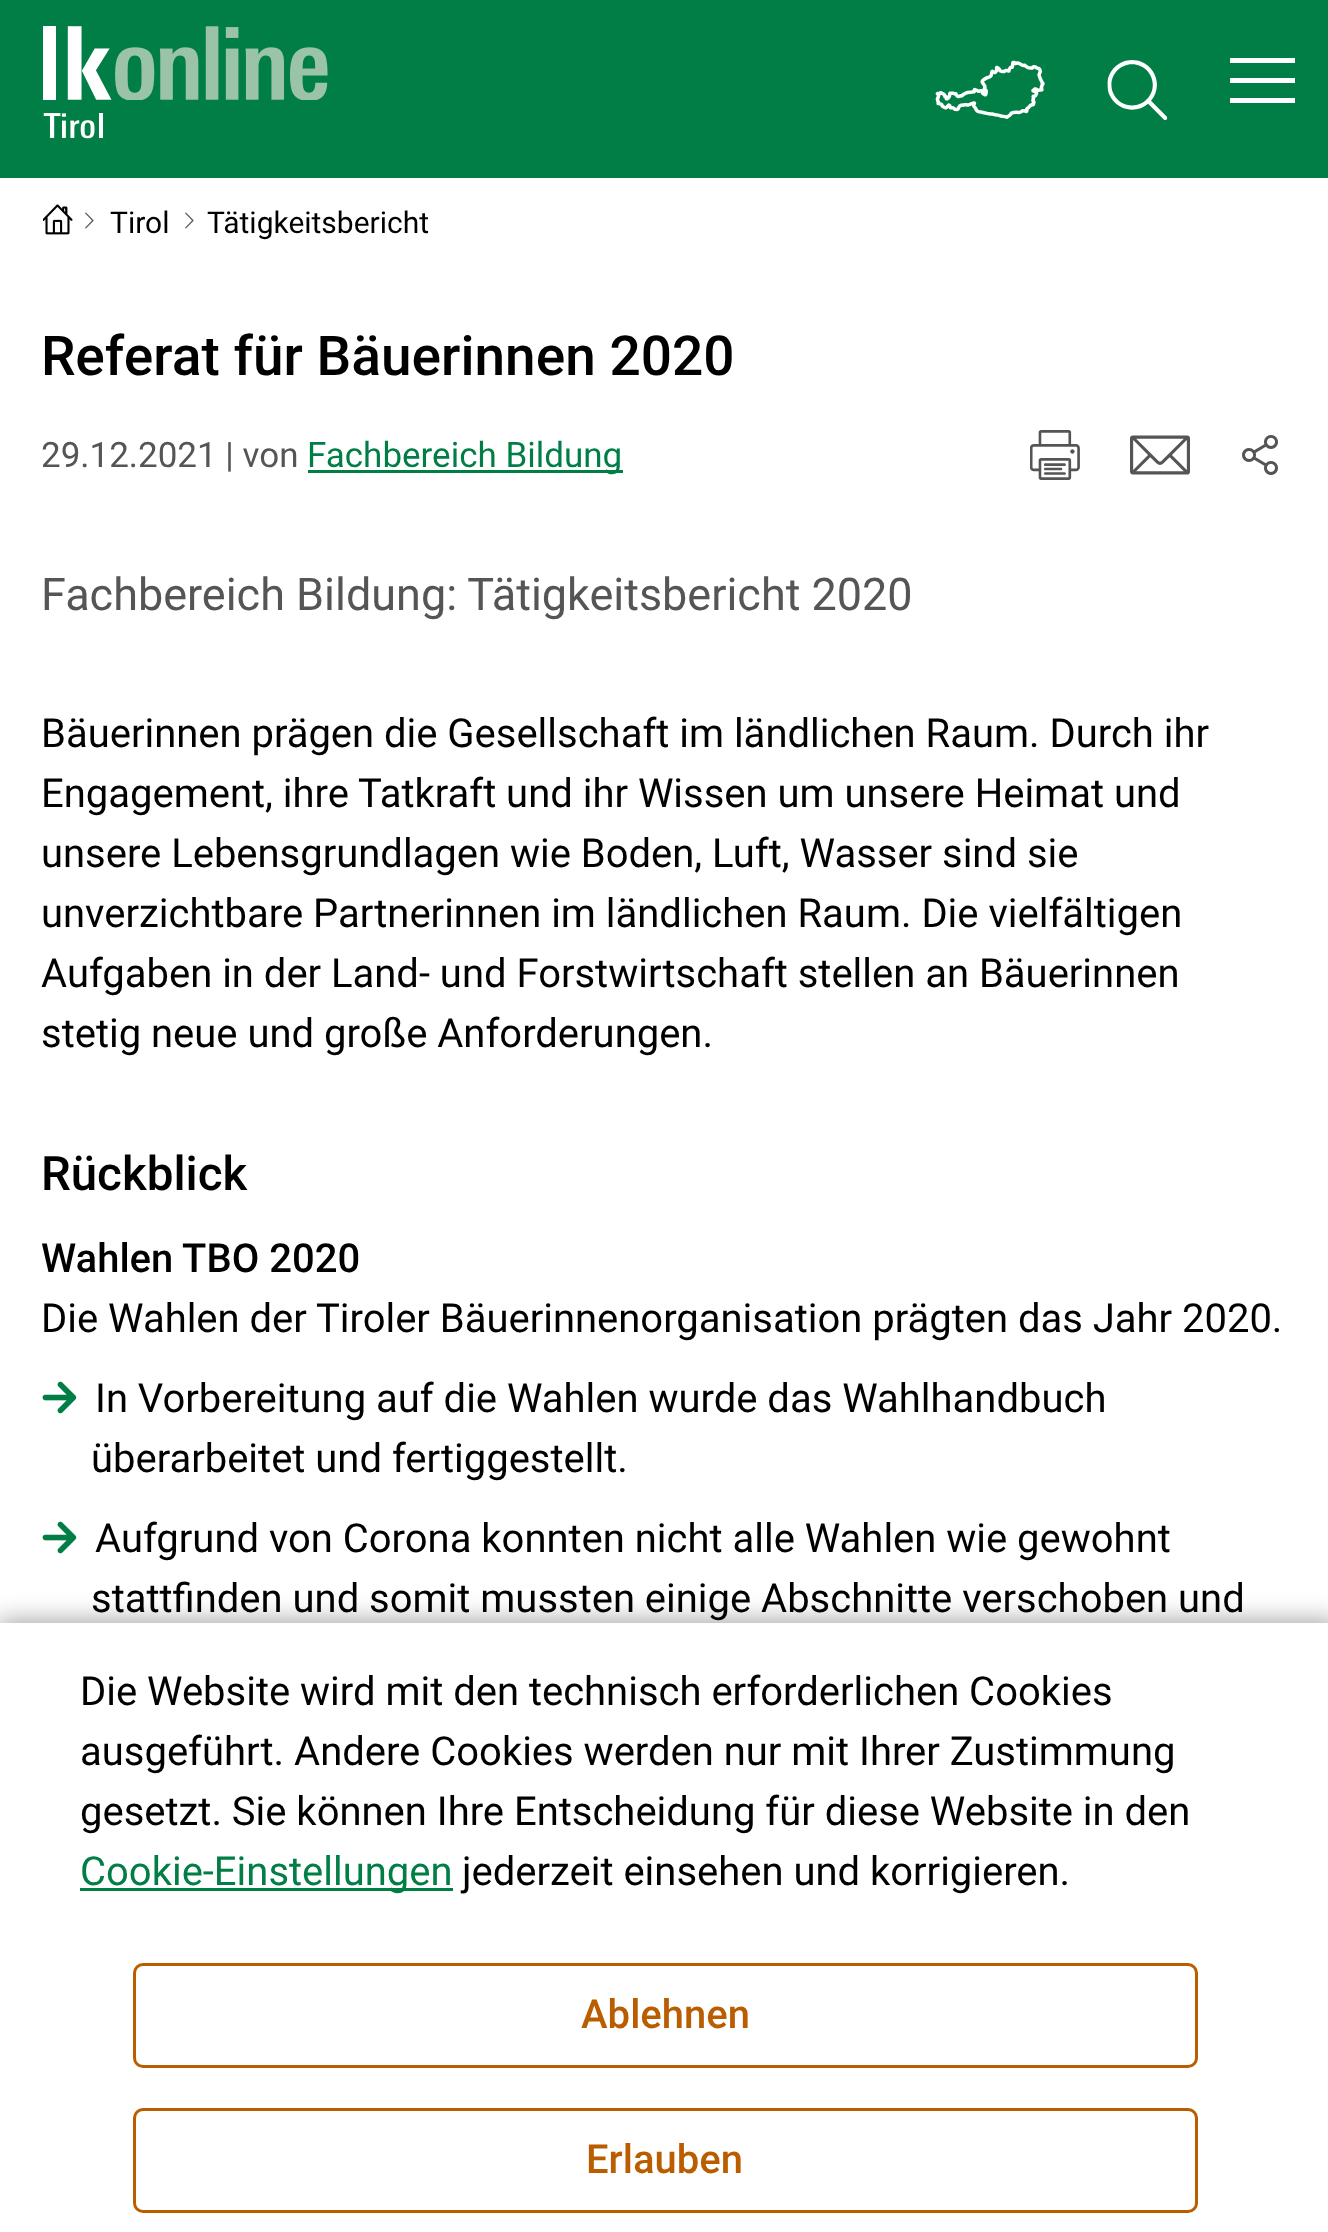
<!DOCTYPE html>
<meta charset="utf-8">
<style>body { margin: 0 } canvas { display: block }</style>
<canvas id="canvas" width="1328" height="2232"></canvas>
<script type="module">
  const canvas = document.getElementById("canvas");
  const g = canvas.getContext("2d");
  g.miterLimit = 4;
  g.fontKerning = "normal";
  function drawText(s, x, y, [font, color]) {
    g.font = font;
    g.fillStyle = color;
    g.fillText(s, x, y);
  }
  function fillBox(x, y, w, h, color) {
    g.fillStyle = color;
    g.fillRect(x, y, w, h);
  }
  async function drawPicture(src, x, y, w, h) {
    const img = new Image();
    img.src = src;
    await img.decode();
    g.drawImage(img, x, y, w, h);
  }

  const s1 = ["30px Roboto", "#000000"];
  const s2 = ["500 55px Roboto", "#000000"];
  const s3 = ["35px Roboto", "#555555"];
  const s4 = ["35px Roboto", "#007E46"];
  const s5 = ["45px Roboto", "#555555"];
  const s6 = ["40px Roboto", "#000000"];
  const s7 = ["500 47.5px Roboto", "#000000"];
  const s8 = ["500 40px Roboto", "#000000"];
  const s9 = ["40px Roboto", "#007E46"];
  const s10 = ["500 40px Roboto", "#BA5D00"];

  fillBox(0, 0, 1328, 2232, "#FFFFFF");
  fillBox(0, 0, 1328, 178, "#007E46");
  await drawPicture("pic1.png", 43, 26, 285, 74);
  await drawPicture("pic2.png", 43, 113, 60, 26);
  await drawPicture("pic3.png", 935, 60, 110, 59);
  await drawPicture("pic4.png", 1107, 60, 61, 60);
  fillBox(1230, 58, 65, 5, "#FFFFFF");
  fillBox(1230, 78, 65, 5, "#FFFFFF");
  fillBox(1230, 98, 65, 5, "#FFFFFF");
  await drawPicture("pic5.png", 43, 204, 30, 31);
  await drawPicture("pic6.png", 85, 212, 9, 17);
  drawText("Tirol", 110, 233, s1);
  await drawPicture("pic6.png", 185, 212, 9, 17);
  drawText("Tätigkeitsbericht", 207, 233, s1);
  drawText("Referat für Bäuerinnen 2020", 41, 375, s2);
  drawText("29.12.2021 | von", 41, 467, s3);
  fillBox(308, 470, 315, 3, "#007E46");
  drawText("Fachbereich Bildung", 307, 467, s4);
  await drawPicture("pic7.png", 1030, 430, 50, 50);
  await drawPicture("pic8.png", 1130, 435, 60, 40);
  await drawPicture("pic9.png", 1242, 435, 36, 40);
  drawText("Fachbereich Bildung: Tätigkeitsbericht 2020", 41, 610, s5);
  drawText("Bäuerinnen prägen die Gesellschaft im ländlichen Raum. Durch ihr", 41, 747, s6);
  drawText("Engagement, ihre Tatkraft und ihr Wissen um unsere Heimat und", 41, 807, s6);
  drawText("unsere Lebensgrundlagen wie Boden, Luft, Wasser sind sie", 41, 867, s6);
  drawText("unverzichtbare Partnerinnen im ländlichen Raum. Die vielfältigen", 41, 927, s6);
  drawText("Aufgaben in der Land- und Forstwirtschaft stellen an Bäuerinnen", 41, 987, s6);
  drawText("stetig neue und große Anforderungen.", 41, 1047, s6);
  drawText("Rückblick", 41, 1190, s7);
  drawText("Wahlen TBO 2020", 41, 1272, s8);
  drawText("Die Wahlen der Tiroler Bäuerinnenorganisation prägten das Jahr 2020.", 41, 1332, s6);
  await drawPicture("pic10.png", 42, 1381, 35, 33);
  drawText("In Vorbereitung auf die Wahlen wurde das Wahlhandbuch", 95, 1412, s6);
  drawText("überarbeitet und fertiggestellt.", 91, 1472, s6);
  await drawPicture("pic10.png", 42, 1521, 35, 33);
  drawText("Aufgrund von Corona konnten nicht alle Wahlen wie gewohnt", 95, 1552, s6);
  drawText("stattfinden und somit mussten einige Abschnitte verschoben und", 91, 1612, s6);
  g.fillStyle = "rgba(0, 0, 0, 0.35)";
  g.filter = "blur(12.5px)";
  g.beginPath();
  g.rect(-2, 1620, 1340, 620);
  g.fill();
  g.filter = "none";
  fillBox(0, 1623, 1328, 609, "#FFFFFF");
  drawText("Die Website wird mit den technisch erforderlichen Cookies", 80, 1705, s6);
  drawText("ausgeführt. Andere Cookies werden nur mit Ihrer Zustimmung", 80, 1765, s6);
  drawText("gesetzt. Sie können Ihre Entscheidung für diese Website in den", 80, 1825, s6);
  fillBox(80, 1888, 373, 3, "#007E46");
  drawText("Cookie-Einstellungen", 80, 1885, s9);
  drawText("jederzeit einsehen und korrigieren.", 462, 1885, s6);
  g.beginPath();
  g.roundRect(134.5, 1964.5, 1062, 102, 8.5);
  g.strokeStyle = "#BA5D00";
  g.lineWidth = 3;
  g.stroke();
  drawText("Ablehnen", 581, 2028, s10);
  g.beginPath();
  g.roundRect(134.5, 2109.5, 1062, 102, 8.5);
  g.stroke();
  drawText("Erlauben", 586, 2173, s10);
</script>
